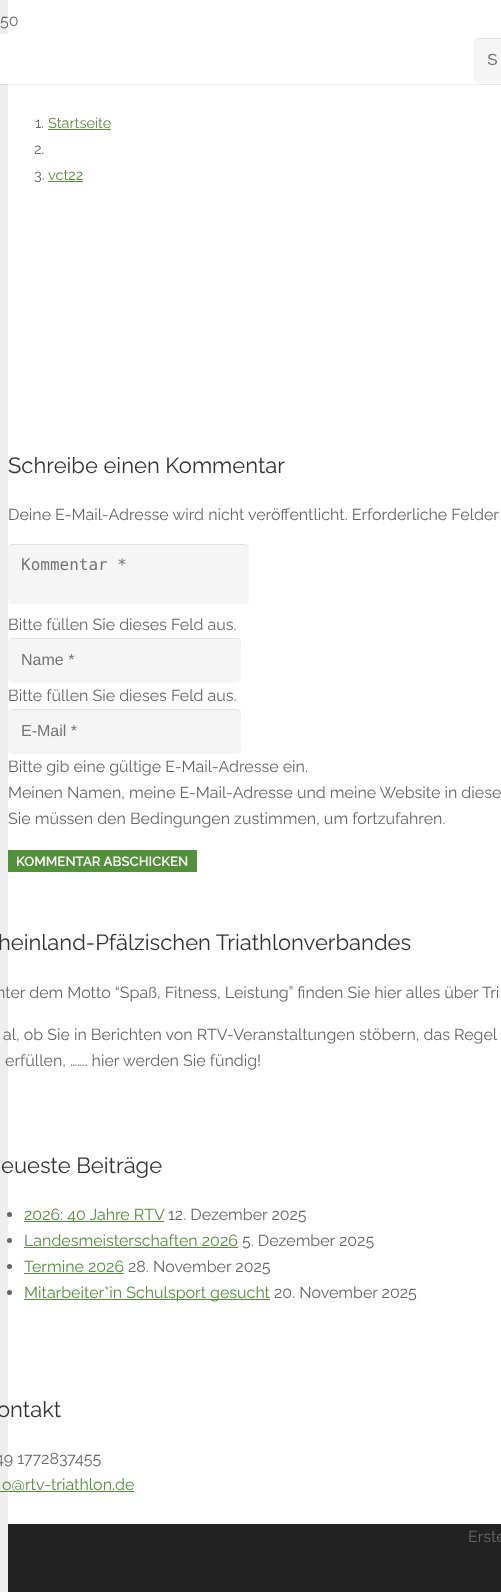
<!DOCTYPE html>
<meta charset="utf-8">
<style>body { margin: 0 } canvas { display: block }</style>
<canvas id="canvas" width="501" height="1592"></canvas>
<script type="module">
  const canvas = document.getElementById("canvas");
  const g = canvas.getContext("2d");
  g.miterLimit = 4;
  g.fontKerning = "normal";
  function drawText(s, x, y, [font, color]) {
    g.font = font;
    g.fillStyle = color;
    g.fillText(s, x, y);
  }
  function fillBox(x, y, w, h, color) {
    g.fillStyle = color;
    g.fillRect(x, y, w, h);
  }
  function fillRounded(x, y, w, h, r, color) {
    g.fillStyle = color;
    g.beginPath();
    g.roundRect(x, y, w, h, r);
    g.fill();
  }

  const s1 = ["16px Raleway", "#666666"];
  const s2 = ["16px Liberation Sans", "#757575"];
  const s3 = ["14.5px Raleway", "#666666"];
  const s4 = ["14.5px Raleway", "#52903A"];
  const s5 = ["22px Raleway", "#333333"];
  const s6 = ["16px DejaVu Sans Mono", "#757575"];
  const s7 = ["600 13.3px Raleway", "#FFFFFF"];
  const s8 = ["16px Raleway", "#52903A"];

  fillBox(0, 0, 501, 1592, "#EEEEEE");
  fillBox(8, 0, 493, 1524, "#FFFFFF");
  drawText("50", 0, 26, s1);
  fillBox(0, 84, 501, 1, "rgba(0, 0, 0, 0.08)");
  fillBox(0, 34, 8, 50, "#FFFFFF");
  fillRounded(474, 38, 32, 45, 5, "#F5F5F5");
  g.fillStyle = "rgba(0, 0, 0, 0.08)";
  g.beginPath();
  g.moveTo(479, 39);
  g.lineTo(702, 39);
  g.bezierCurveTo(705, 39, 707, 41, 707, 44);
  g.lineTo(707, 43);
  g.bezierCurveTo(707, 40, 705, 38, 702, 38);
  g.lineTo(479, 38);
  g.bezierCurveTo(476, 38, 474, 40, 474, 43);
  g.lineTo(474, 44);
  g.bezierCurveTo(474, 41, 476, 39, 479, 39);
  g.closePath();
  g.fill();
  drawText("S", 487, 65, s2);
  drawText("1.", 35, 128, s3);
  drawText("Startseite", 48, 128, s4);
  fillBox(48, 129, 63, 1, "#52903A");
  drawText("2.", 34, 154, s3);
  drawText("3.", 34, 180, s3);
  drawText("vct22", 48, 180, s4);
  fillBox(48, 181, 35, 1, "#52903A");
  drawText("Schreibe einen Kommentar", 8, 473, s5);
  drawText("Deine E-Mail-Adresse wird nicht veröffentlicht. Erforderliche Felder", 8, 520, s1);
  fillRounded(8, 544, 241, 60, 5, "#F5F5F5");
  g.fillStyle = "rgba(0, 0, 0, 0.08)";
  g.beginPath();
  g.moveTo(13, 545);
  g.lineTo(244, 545);
  g.bezierCurveTo(247, 545, 249, 547, 249, 550);
  g.lineTo(249, 549);
  g.bezierCurveTo(249, 546, 247, 544, 244, 544);
  g.lineTo(13, 544);
  g.bezierCurveTo(10, 544, 8, 546, 8, 549);
  g.lineTo(8, 550);
  g.bezierCurveTo(8, 547, 10, 545, 13, 545);
  g.closePath();
  g.fill();
  drawText("Kommentar *", 21, 570, s6);
  drawText("Bitte füllen Sie dieses Feld aus.", 8, 630, s1);
  fillRounded(8, 638, 233, 45, 5, "#F5F5F5");
  g.fillStyle = "rgba(0, 0, 0, 0.08)";
  g.beginPath();
  g.moveTo(13, 639);
  g.lineTo(236, 639);
  g.bezierCurveTo(239, 639, 241, 641, 241, 644);
  g.lineTo(241, 643);
  g.bezierCurveTo(241, 640, 239, 638, 236, 638);
  g.lineTo(13, 638);
  g.bezierCurveTo(10, 638, 8, 640, 8, 643);
  g.lineTo(8, 644);
  g.bezierCurveTo(8, 641, 10, 639, 13, 639);
  g.closePath();
  g.fill();
  drawText("Name *", 21, 665, s2);
  drawText("Bitte füllen Sie dieses Feld aus.", 8, 701, s1);
  fillRounded(8, 709, 233, 45, 5, "#F5F5F5");
  g.fillStyle = "rgba(0, 0, 0, 0.08)";
  g.beginPath();
  g.moveTo(13, 710);
  g.lineTo(236, 710);
  g.bezierCurveTo(239, 710, 241, 712, 241, 715);
  g.lineTo(241, 714);
  g.bezierCurveTo(241, 711, 239, 709, 236, 709);
  g.lineTo(13, 709);
  g.bezierCurveTo(10, 709, 8, 711, 8, 714);
  g.lineTo(8, 715);
  g.bezierCurveTo(8, 712, 10, 710, 13, 710);
  g.closePath();
  g.fill();
  drawText("E-Mail *", 21, 736, s2);
  drawText("Bitte gib eine gültige E-Mail-Adresse ein.", 8, 772, s1);
  drawText("Meinen Namen, meine E-Mail-Adresse und meine Website in diese", 8, 798, s1);
  drawText("Sie müssen den Bedingungen zustimmen, um fortzufahren.", 8, 824, s1);
  fillBox(8, 850, 189, 22, "#52903A");
  drawText("KOMMENTAR ABSCHICKEN", 16, 866, s7);
  drawText("heinland-Pfälzischen Triathlonverbandes", -2, 950, s5);
  drawText("nter dem Motto “Spaß, Fitness, Leistung” finden Sie hier alles über Tri", -4, 998, s1);
  drawText("al, ob Sie in Berichten von RTV-Veranstaltungen stöbern, das Regel", 3, 1040, s1);
  drawText("erfüllen, ……. hier werden Sie fündig!", 5, 1066, s1);
  drawText("eueste Beiträge", 1, 1173, s5);
  g.fillStyle = "#666666";
  g.beginPath();
  g.arc(9.5, 1214.5, 2.5, 0, Math.PI * 2);
  g.fill();
  fillBox(24, 1221, 140, 1, "#52903A");
  drawText("2026: 40 Jahre RTV", 24, 1220, s8);
  drawText("12. Dezember 2025", 168, 1220, s1);
  g.beginPath();
  g.arc(9.5, 1240.5, 2.5, 0, Math.PI * 2);
  g.fill();
  drawText("Landesmeisterschaften 2026", 24, 1246, s8);
  fillBox(24, 1247, 214, 1, "#52903A");
  drawText("5. Dezember 2025", 242, 1246, s1);
  g.beginPath();
  g.arc(9.5, 1266.5, 2.5, 0, Math.PI * 2);
  g.fill();
  drawText("Termine 2026", 24, 1272, s8);
  fillBox(24, 1273, 100, 1, "#52903A");
  drawText("28. November 2025", 128, 1272, s1);
  g.beginPath();
  g.arc(9.5, 1292.5, 2.5, 0, Math.PI * 2);
  g.fill();
  fillBox(24, 1299, 246, 1, "#52903A");
  drawText("Mitarbeiter*in Schulsport gesucht", 24, 1298, s8);
  drawText("20. November 2025", 274, 1298, s1);
  drawText("ontakt", -3, 1417, s5);
  drawText("49 1772837455", -5, 1464, s1);
  fillBox(0, 1491, 134, 1, "#52903A");
  drawText("o@rtv-triathlon.de", 2, 1490, s8);
  fillBox(8, 1524, 493, 68, "#222222");
  drawText("Erste", 468, 1542, s1);
</script>
